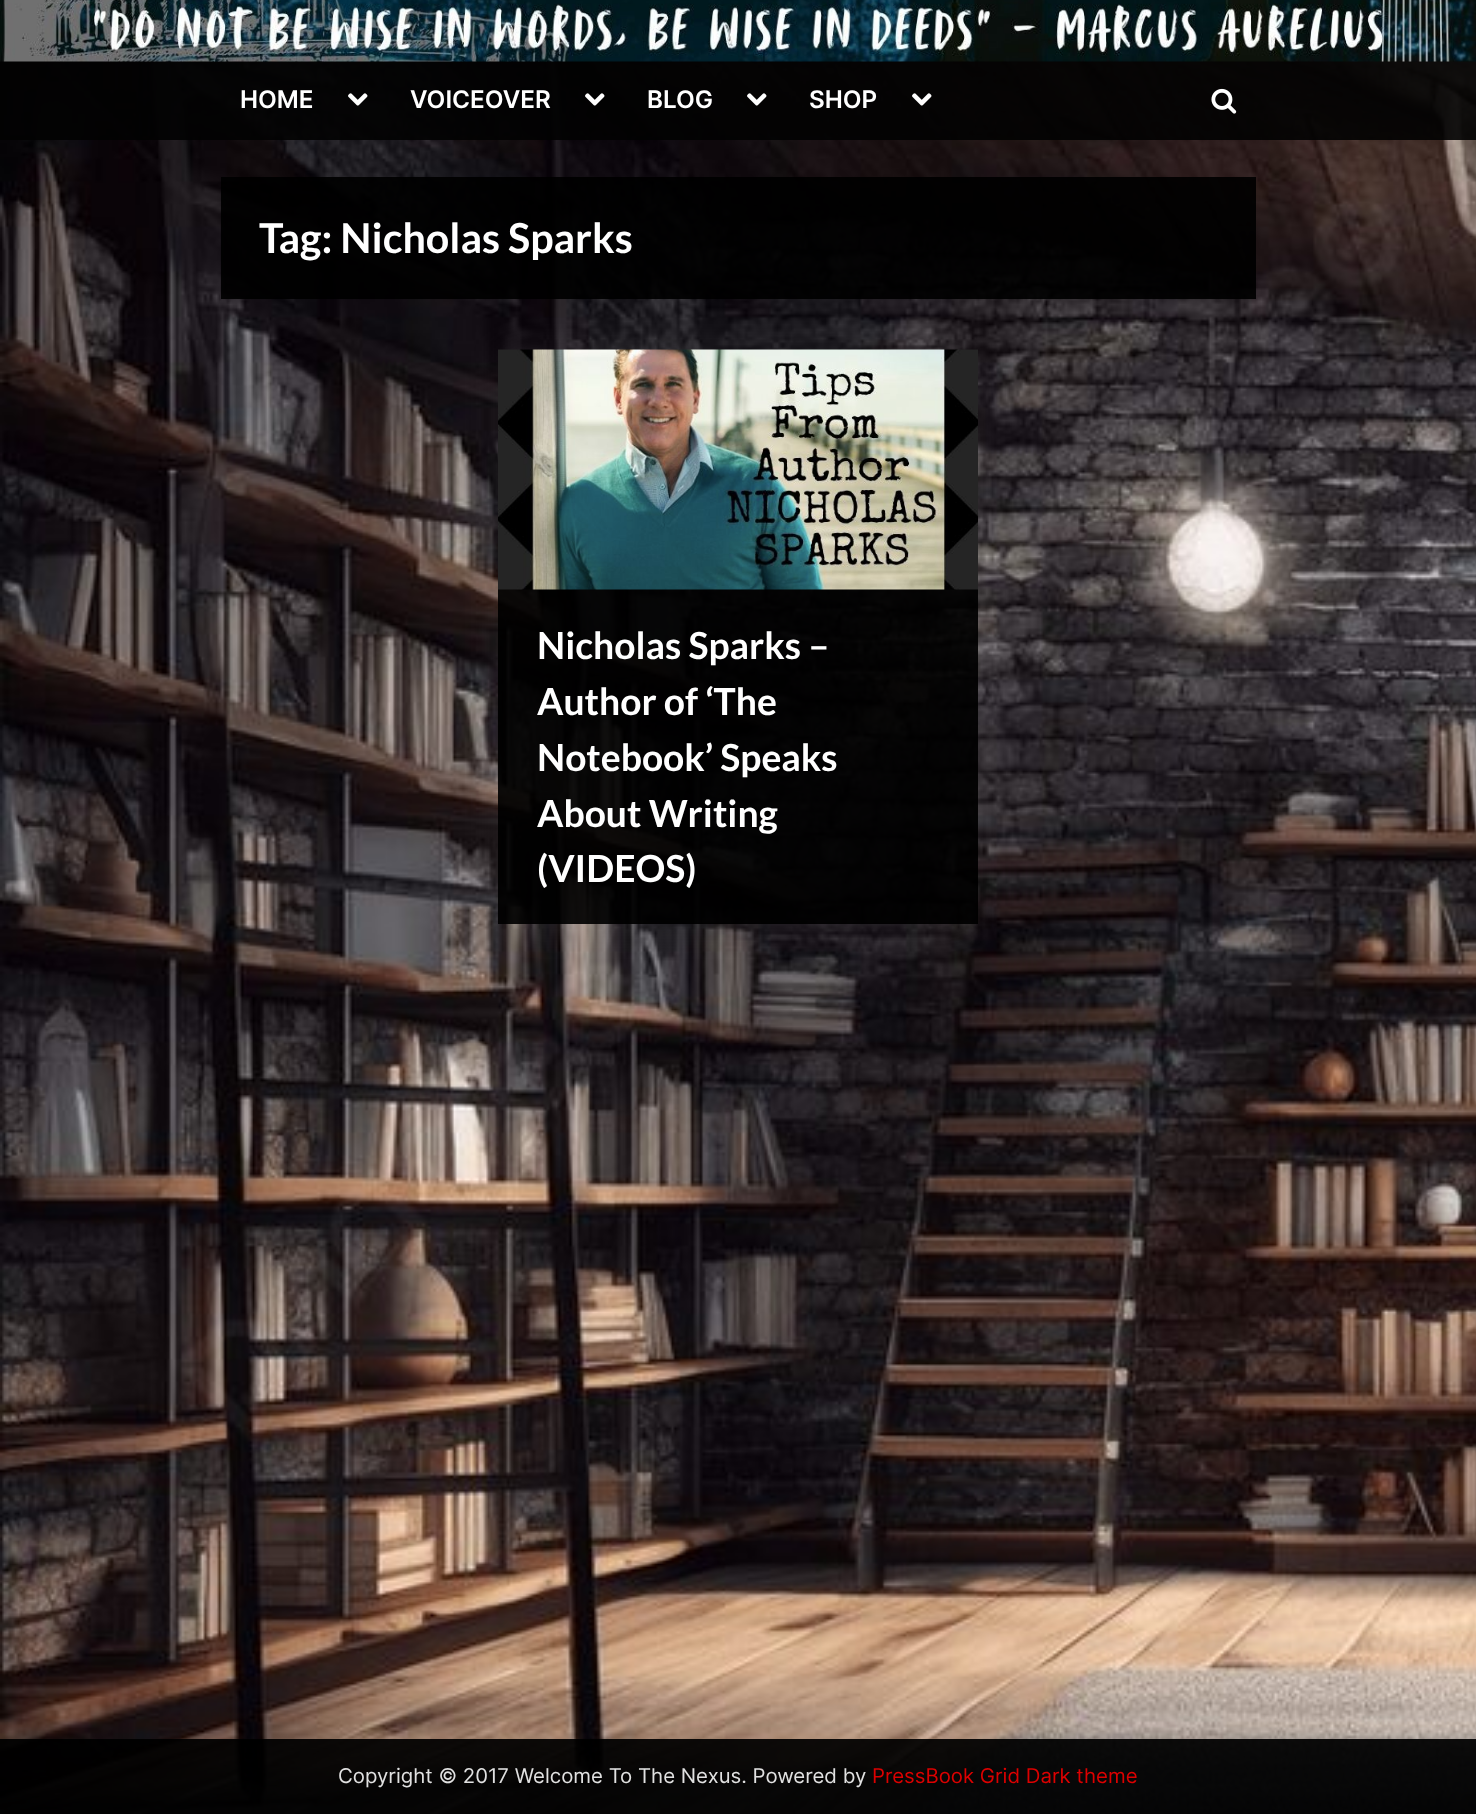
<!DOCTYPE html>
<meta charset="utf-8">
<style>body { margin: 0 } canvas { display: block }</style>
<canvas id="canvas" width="1476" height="1814"></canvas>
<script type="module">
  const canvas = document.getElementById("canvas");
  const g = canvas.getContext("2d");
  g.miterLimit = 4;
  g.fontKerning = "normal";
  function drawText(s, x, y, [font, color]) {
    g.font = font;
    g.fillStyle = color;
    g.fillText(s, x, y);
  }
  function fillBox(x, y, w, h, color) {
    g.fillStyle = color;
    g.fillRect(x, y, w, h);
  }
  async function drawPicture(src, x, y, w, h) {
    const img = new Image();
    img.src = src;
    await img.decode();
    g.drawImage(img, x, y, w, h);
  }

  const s1 = ["600 24.25px Inter", "#FFFFFF"];
  const s2 = ["bold 41.25px Lato", "#FFFFFF"];
  const s3 = ["bold 37.25px Lato", "#FFFFFF"];
  const s4 = ["20.4px Inter", "#E1E1E1"];
  const s5 = ["20.4px Inter", "#DD0000"];

  fillBox(0, 0, 1476, 1814, "#FFFFFF");
  await drawPicture("pic1.png", 0, 61, 1476, 1753);
  fillBox(0, 61, 1476, 1, "rgba(2, 2, 2, 0.9)");
  await drawPicture("pic2.png", 0, 0, 1476, 62);
  fillBox(0, 62, 1476, 78, "rgba(2, 2, 2, 0.9)");
  drawText("HOME", 240, 108, s1);
  await drawPicture("pic3.png", 348, 93, 20, 13);
  drawText("VOICEOVER", 410, 108, s1);
  await drawPicture("pic4.png", 585, 93, 20, 13);
  drawText("BLOG", 647, 108, s1);
  await drawPicture("pic5.png", 747, 93, 20, 13);
  drawText("SHOP", 809, 108, s1);
  await drawPicture("pic6.png", 912, 93, 20, 13);
  await drawPicture("pic7.png", 1211, 88, 26, 26);
  fillBox(221, 177, 1035, 122, "rgba(0, 0, 0, 0.91)");
  drawText("Tag: Nicholas Sparks", 259, 253, s2);
  g.save();
  g.beginPath();
  g.moveTo(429, 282);
  g.lineTo(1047, 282);
  g.lineTo(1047, 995);
  g.lineTo(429, 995);
  g.closePath();
  g.moveTo(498, 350);
  g.lineTo(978, 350);
  g.lineTo(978, 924);
  g.lineTo(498, 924);
  g.closePath();
  g.clip("evenodd");
  g.fillStyle = "rgba(255, 255, 255, 0.09)";
  g.filter = "blur(22.5px)";
  g.beginPath();
  g.rect(498, 351, 480, 575);
  g.fill();
  g.filter = "none";
  g.restore();
  fillBox(498, 589, 480, 335, "rgba(0, 0, 0, 0.91)");
  await drawPicture("pic8.png", 498, 349, 480, 241);
  drawText("Nicholas Sparks –", 537, 659, s3);
  drawText("Author of ‘The", 537, 715, s3);
  drawText("Notebook’ Speaks", 537, 771, s3);
  drawText("About Writing", 537, 827, s3);
  drawText("(VIDEOS)", 537, 882, s3);
  fillBox(0, 1739, 1476, 75, "rgba(0, 0, 0, 0.93)");
  drawText("Copyright © 2017 Welcome To The Nexus. Powered by", 338, 1783, s4);
  drawText("PressBook Grid Dark theme", 872, 1783, s5);
</script>
